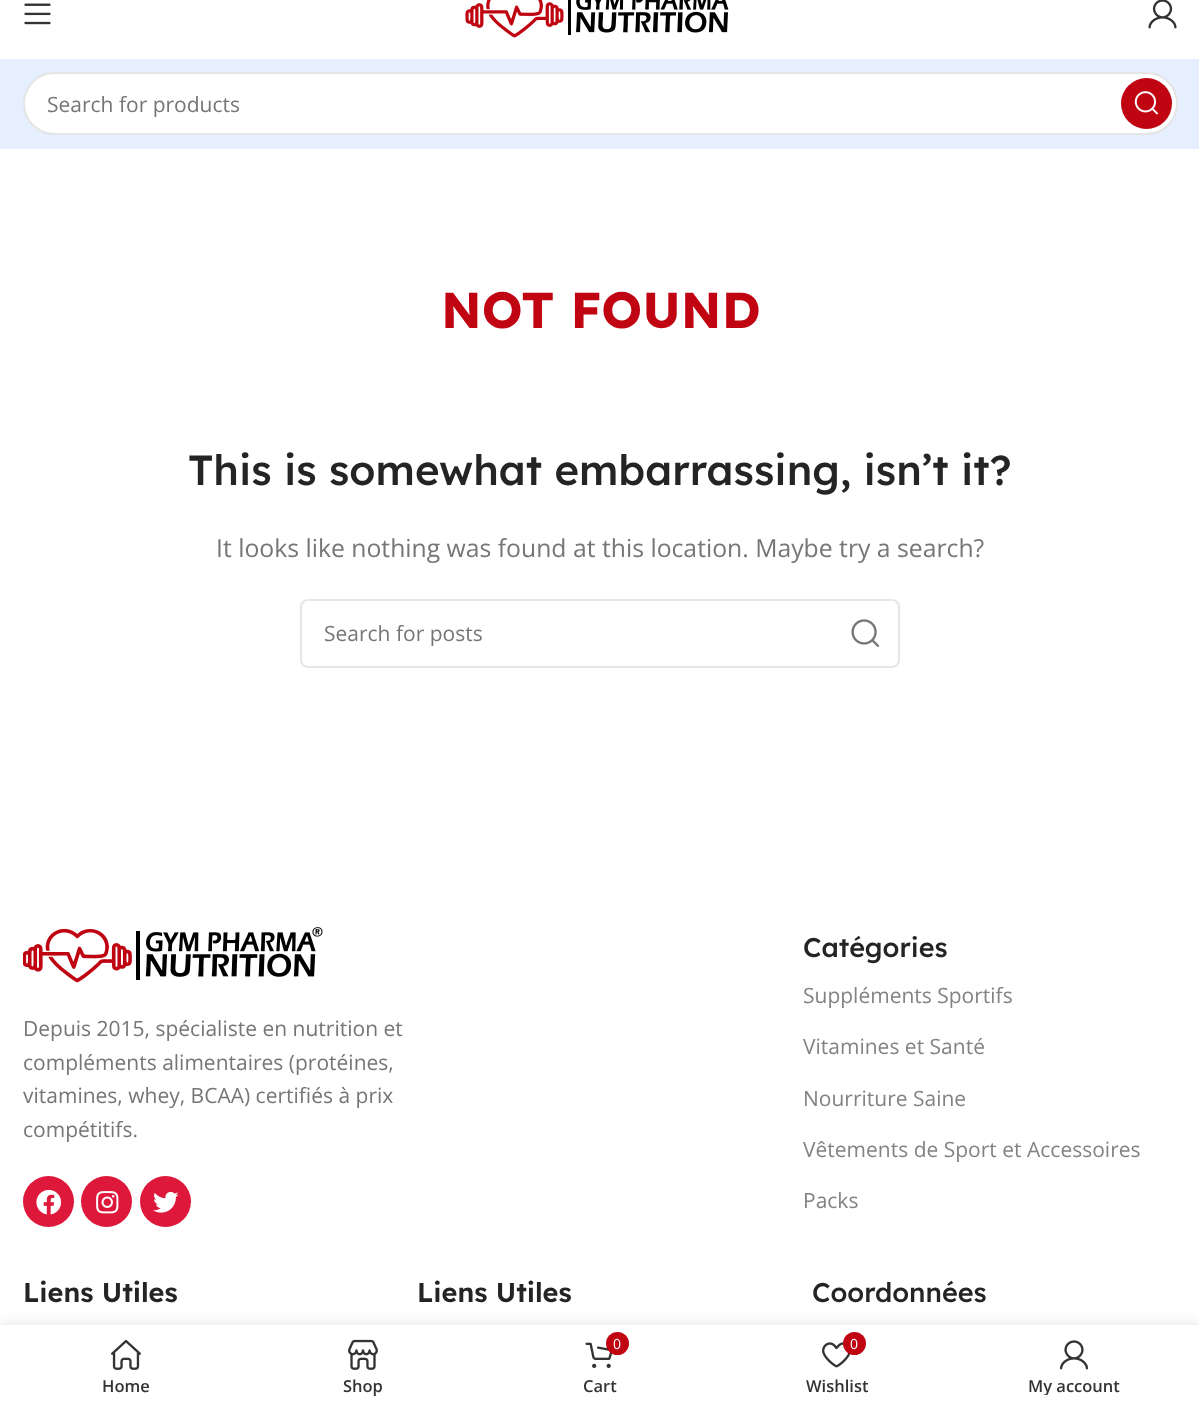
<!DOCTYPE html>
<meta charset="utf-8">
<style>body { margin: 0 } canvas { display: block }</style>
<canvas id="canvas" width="1199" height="1406"></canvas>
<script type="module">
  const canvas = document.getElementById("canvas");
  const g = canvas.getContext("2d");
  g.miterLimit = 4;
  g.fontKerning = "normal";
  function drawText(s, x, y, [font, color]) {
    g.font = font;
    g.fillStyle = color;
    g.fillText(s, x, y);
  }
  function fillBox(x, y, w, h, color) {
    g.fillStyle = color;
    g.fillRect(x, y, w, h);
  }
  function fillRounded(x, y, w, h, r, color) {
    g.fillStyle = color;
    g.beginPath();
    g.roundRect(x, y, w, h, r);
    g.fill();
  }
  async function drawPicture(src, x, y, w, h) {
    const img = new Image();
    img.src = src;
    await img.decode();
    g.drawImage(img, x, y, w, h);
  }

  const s1 = ["21px Open Sans", "#767676"];
  const s2 = ["bold 50.5px Lexend Deca", "#C00412"];
  const s3 = ["500 42px Lexend Deca", "#242424"];
  const s4 = ["24.75px Open Sans", "#767676"];
  const s5 = ["500 27px Lexend Deca", "#242424"];
  const s6 = ["21px Open Sans", "#838383"];
  const s7 = ["600 27px Lexend Deca", "#242424"];
  const s8 = ["600 16.5px Open Sans", "#333333"];
  const s9 = ["14px Open Sans", "#FFFFFF"];

  fillBox(0, 0, 1199, 1406, "#FFFFFF");
  await drawPicture("pic1.png", 24, 3, 27, 22);
  await drawPicture("pic2.png", 465, 0, 264, 38);
  await drawPicture("pic3.png", 1148, 0, 29, 29);
  fillBox(0, 59, 1199, 90, "#E6EFFD");
  fillRounded(23, 72, 1155, 63, 31.5, "#FFFFFF");
  g.beginPath();
  g.roundRect(24, 73, 1153, 61, 30.5);
  g.strokeStyle = "rgba(0, 0, 0, 0.1)";
  g.lineWidth = 2;
  g.stroke();
  drawText("Search for products", 47, 112, s1);
  g.fillStyle = "#C00412";
  g.beginPath();
  g.arc(1146.5, 103.5, 25.5, 0, Math.PI * 2);
  g.fill();
  await drawPicture("pic4.png", 1134, 91, 24, 24);
  drawText("NOT FOUND", 441, 328, s2);
  drawText("This is somewhat embarrassing, isn’t it?", 188, 485, s3);
  drawText("It looks like nothing was found at this location. Maybe try a search?", 216, 557, s4);
  g.beginPath();
  g.roundRect(301, 600, 598, 67, 7);
  g.strokeStyle = "#E6E6E6";
  g.stroke();
  drawText("Search for posts", 324, 641, s1);
  await drawPicture("pic5.png", 851, 619, 29, 28);
  await drawPicture("pic6.png", 23, 927, 300, 56);
  drawText("Depuis 2015, spécialiste en nutrition et", 23, 1036, s1);
  drawText("compléments alimentaires (protéines,", 23, 1070, s1);
  drawText("vitamines, whey, BCAA) certifiés à prix", 23, 1103, s1);
  drawText("compétitifs.", 23, 1137, s1);
  g.fillStyle = "#DE183B";
  g.beginPath();
  g.arc(48.5, 1201.5, 25.5, 0, Math.PI * 2);
  g.fill();
  await drawPicture("pic7.png", 36, 1190, 26, 25);
  g.beginPath();
  g.arc(106.5, 1201.5, 25.5, 0, Math.PI * 2);
  g.fill();
  await drawPicture("pic8.png", 96, 1191, 23, 23);
  g.beginPath();
  g.arc(165.5, 1201.5, 25.5, 0, Math.PI * 2);
  g.fill();
  await drawPicture("pic9.png", 153, 1191, 26, 22);
  drawText("Catégories", 803, 957, s5);
  drawText("Suppléments Sportifs", 803, 1003, s6);
  drawText("Vitamines et Santé", 803, 1054, s6);
  drawText("Nourriture Saine", 803, 1106, s6);
  drawText("Vêtements de Sport et Accessoires", 803, 1157, s6);
  drawText("Packs", 803, 1208, s6);
  drawText("Liens Utiles", 23, 1302, s7);
  drawText("Liens Utiles", 417, 1302, s7);
  drawText("Coordonnées", 812, 1302, s5);
  g.fillStyle = "rgba(0, 0, 0, 0.12)";
  g.filter = "blur(7px)";
  g.beginPath();
  g.rect(0, 1325, 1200, 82);
  g.fill();
  g.filter = "none";
  fillBox(0, 1325, 1199, 81, "#FFFFFF");
  await drawPicture("pic10.png", 111, 1339, 30, 31);
  drawText("Home", 102, 1392, s8);
  await drawPicture("pic11.png", 348, 1339, 30, 31);
  drawText("Shop", 343, 1392, s8);
  await drawPicture("pic12.png", 585, 1342, 28, 26);
  g.fillStyle = "#C00412";
  g.beginPath();
  g.arc(617.5, 1343.5, 11.5, 0, Math.PI * 2);
  g.fill();
  drawText("0", 613, 1349, s9);
  drawText("Cart", 583, 1392, s8);
  await drawPicture("pic13.png", 822, 1342, 29, 26);
  g.fillStyle = "#C00412";
  g.beginPath();
  g.arc(854.5, 1343.5, 11.5, 0, Math.PI * 2);
  g.fill();
  drawText("0", 850, 1349, s9);
  drawText("Wishlist", 806, 1392, s8);
  await drawPicture("pic14.png", 1059, 1340, 29, 30);
  g.save();
  g.beginPath();
  g.rect(971, 1376, 207, 19);
  g.clip();
  drawText("My account", 1028, 1392, s8);
  g.restore();
</script>
